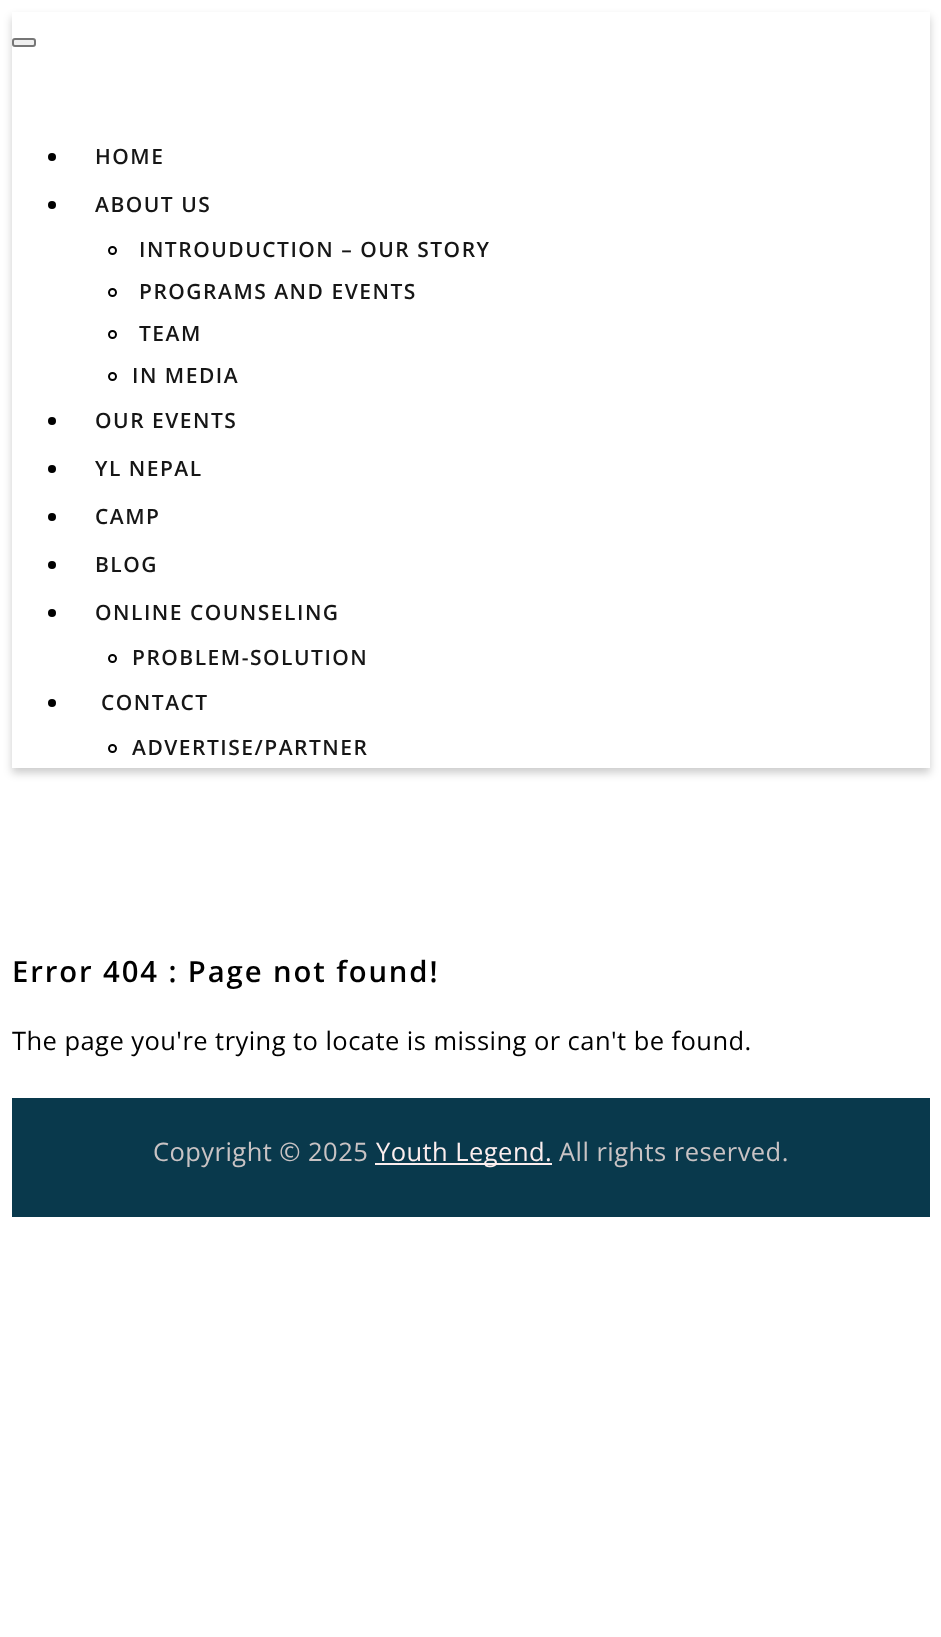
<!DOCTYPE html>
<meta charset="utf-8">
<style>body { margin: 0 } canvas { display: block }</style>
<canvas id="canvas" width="941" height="1637"></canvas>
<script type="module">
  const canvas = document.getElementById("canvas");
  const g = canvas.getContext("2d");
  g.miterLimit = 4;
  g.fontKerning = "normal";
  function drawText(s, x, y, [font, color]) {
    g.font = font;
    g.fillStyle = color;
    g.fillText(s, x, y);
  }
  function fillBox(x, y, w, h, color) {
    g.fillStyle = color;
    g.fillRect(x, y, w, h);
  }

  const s1 = ["600 21px Open Sans", "#161616"];
  const s2 = ["600 29.25px Open Sans", "#000000"];
  const s3 = ["25.5px Open Sans", "#000000"];
  const s4 = ["25.5px Open Sans", "#C9C3C4"];
  const s5 = ["25.5px Open Sans", "#FCEEEE"];

  fillBox(0, 0, 941, 1637, "#FFFFFF");
  g.save();
  g.beginPath();
  g.moveTo(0, 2);
  g.lineTo(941, 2);
  g.lineTo(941, 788);
  g.lineTo(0, 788);
  g.closePath();
  g.moveTo(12, 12);
  g.lineTo(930, 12);
  g.lineTo(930, 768);
  g.lineTo(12, 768);
  g.closePath();
  g.clip("evenodd");
  g.fillStyle = "rgba(0, 0, 0, 0.2)";
  g.filter = "blur(4.5px)";
  g.beginPath();
  g.rect(12, 17, 918, 756);
  g.fill();
  g.filter = "none";
  g.restore();
  g.fillStyle = "#EFEFEF";
  g.beginPath();
  g.roundRect(13, 39, 22, 7, 2);
  g.fill();
  g.strokeStyle = "#767676";
  g.lineWidth = 2;
  g.stroke();
  g.fillStyle = "#000000";
  g.beginPath();
  g.arc(52, 157, 4, 0, Math.PI * 2);
  g.fill();
  g.letterSpacing = "1.5px";
  drawText("HOME", 95, 164, s1);
  g.fillStyle = "#000000";
  g.beginPath();
  g.arc(52, 205, 4, 0, Math.PI * 2);
  g.fill();
  drawText("ABOUT US", 95, 212, s1);
  g.beginPath();
  g.arc(112.5, 250.5, 3.5, 0, Math.PI * 2);
  g.strokeStyle = "#000000";
  g.stroke();
  drawText("INTROUDUCTION – OUR STORY", 139, 257, s1);
  g.beginPath();
  g.arc(112.5, 292.5, 3.5, 0, Math.PI * 2);
  g.stroke();
  drawText("PROGRAMS AND EVENTS", 139, 299, s1);
  g.beginPath();
  g.arc(112.5, 334.5, 3.5, 0, Math.PI * 2);
  g.stroke();
  drawText("TEAM", 139, 341, s1);
  g.beginPath();
  g.arc(112.5, 376.5, 3.5, 0, Math.PI * 2);
  g.stroke();
  drawText("IN MEDIA", 132, 383, s1);
  g.fillStyle = "#000000";
  g.beginPath();
  g.arc(52, 421, 4, 0, Math.PI * 2);
  g.fill();
  drawText("OUR EVENTS", 95, 428, s1);
  g.fillStyle = "#000000";
  g.beginPath();
  g.arc(52, 469, 4, 0, Math.PI * 2);
  g.fill();
  drawText("YL NEPAL", 95, 476, s1);
  g.fillStyle = "#000000";
  g.beginPath();
  g.arc(52, 517, 4, 0, Math.PI * 2);
  g.fill();
  drawText("CAMP", 95, 524, s1);
  g.fillStyle = "#000000";
  g.beginPath();
  g.arc(52, 565, 4, 0, Math.PI * 2);
  g.fill();
  drawText("BLOG", 95, 572, s1);
  g.fillStyle = "#000000";
  g.beginPath();
  g.arc(52, 613, 4, 0, Math.PI * 2);
  g.fill();
  drawText("ONLINE COUNSELING", 95, 620, s1);
  g.beginPath();
  g.arc(112.5, 658.5, 3.5, 0, Math.PI * 2);
  g.stroke();
  drawText("PROBLEM-SOLUTION", 132, 665, s1);
  g.fillStyle = "#000000";
  g.beginPath();
  g.arc(52, 703, 4, 0, Math.PI * 2);
  g.fill();
  drawText("CONTACT", 101, 710, s1);
  g.beginPath();
  g.arc(112.5, 748.5, 3.5, 0, Math.PI * 2);
  g.stroke();
  drawText("ADVERTISE/PARTNER", 132, 755, s1);
  g.letterSpacing = "1.9px";
  drawText("Error 404 : Page not found!", 12, 982, s2);
  g.letterSpacing = "0.45px";
  drawText("The page you're trying to locate is missing or can't be found.", 12, 1050, s3);
  fillBox(12, 1098, 918, 119, "#09394C");
  drawText("Copyright © 2025", 153, 1161, s4);
  fillBox(375, 1163, 177, 2, "#FCEEEE");
  drawText("Youth Legend.", 376, 1161, s5);
  drawText("All rights reserved.", 559, 1161, s4);
</script>
